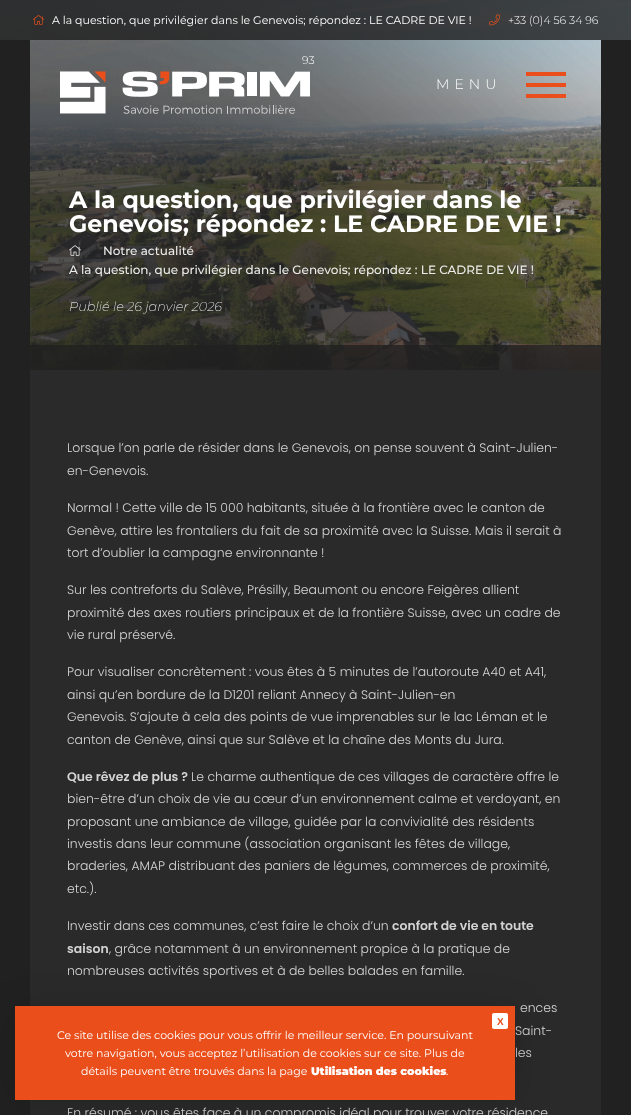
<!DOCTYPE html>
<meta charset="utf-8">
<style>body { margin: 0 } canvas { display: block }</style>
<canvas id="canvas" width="631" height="1115"></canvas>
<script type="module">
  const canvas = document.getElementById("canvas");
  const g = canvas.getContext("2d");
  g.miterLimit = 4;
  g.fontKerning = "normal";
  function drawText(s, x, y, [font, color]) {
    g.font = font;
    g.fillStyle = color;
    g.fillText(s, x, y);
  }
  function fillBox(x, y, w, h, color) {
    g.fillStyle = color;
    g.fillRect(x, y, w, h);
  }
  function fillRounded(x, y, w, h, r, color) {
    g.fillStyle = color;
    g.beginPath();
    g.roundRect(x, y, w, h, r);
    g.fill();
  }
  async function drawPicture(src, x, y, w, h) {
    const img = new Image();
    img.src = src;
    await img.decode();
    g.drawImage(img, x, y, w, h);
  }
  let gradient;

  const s1 = ["11px Montserrat", "#FFFFFF"];
  const s2 = ["300 11px Montserrat", "#FFFFFF"];
  const s3 = ["300 14px Montserrat", "#FFFFFF"];
  const s4 = ["bold 23.75px Montserrat", "#FFFFFF"];
  const s5 = ["500 12px Montserrat", "#EBEBEA"];
  const s6 = ["italic 200 12.9px Montserrat", "#FFFFFF"];
  const s7 = ["300 12.45px Poppins", "#D4D4D4"];
  const s8 = ["600 12.45px Poppins", "#D4D4D4"];
  const s9 = ["bold 10px Liberation Sans", "#E94E1B"];
  const s10 = ["900 11px Montserrat", "#FFFFFF"];

  fillBox(0, 0, 631, 1115, "#212121");
  await drawPicture("pic4.png", 0, 0, 631, 370);
  await drawPicture("pic5.png", 0, 0, 631, 370);
  fillBox(0, 0, 631, 40, "rgba(33, 33, 33, 0.8)");
  await drawPicture("pic1.png", 33, 15, 11, 10);
  drawText("A la question, que privilégier dans le Genevois; répondez : LE CADRE DE VIE !", 52, 24, s1);
  await drawPicture("pic2.png", 489, 14, 11, 12);
  drawText("+33 (0)4 56 34 96", 508, 24, s2);
  drawText("93", 302, 64, s2);
  await drawPicture("pic3.png", 60, 71, 250, 43);
  fillBox(526, 72, 40, 4, "#E94E1B");
  g.letterSpacing = "5px";
  drawText("MENU", 436, 89, s3);
  fillBox(526, 83, 40, 4, "#E94E1B");
  fillBox(526, 94, 40, 4, "#E94E1B");
  fillBox(0, 40, 30, 330, "#212121");
  g.letterSpacing = "0px";
  drawText("A la question, que privilégier dans le", 69, 208, s4);
  drawText("Genevois; répondez : LE CADRE DE VIE !", 69, 232, s4);
  await drawPicture("pic6.png", 69, 245, 12, 11);
  drawText("Notre actualité", 103, 255, s5);
  drawText("A la question, que privilégier dans le Genevois; répondez : LE CADRE DE VIE !", 69, 274, s5);
  drawText("Publié le 26 janvier 2026", 69, 311, s6);
  gradient = g.createLinearGradient(316, 345, 316, 445);
  gradient.addColorStop(0, "rgba(33, 33, 33, 0)");
  gradient.addColorStop(1, "#212121");
  g.fillStyle = gradient;
  g.fillRect(30, 348, 571, 22);
  fillBox(30, 345, 571, 25, "rgba(33, 33, 33, 0.8)");
  fillBox(601, 40, 30, 330, "#212121");
  fillBox(30, 370, 571, 745, "#2A2A2A");
  drawText("Lorsque l’on parle de résider dans le Genevois, on pense souvent à Saint-Julien-", 67, 452, s7);
  drawText("en-Genevois.", 67, 475, s7);
  drawText("Normal ! Cette ville de 15 000 habitants, située à la frontière avec le canton de", 67, 512, s7);
  drawText("Genève, attire les frontaliers du fait de sa proximité avec la Suisse. Mais il serait à", 67, 535, s7);
  drawText("tort d’oublier la campagne environnante !", 67, 557, s7);
  drawText("Sur les contreforts du Salève, Présilly, Beaumont ou encore Feigères allient", 67, 594, s7);
  drawText("proximité des axes routiers principaux et de la frontière Suisse, avec un cadre de", 67, 617, s7);
  drawText("vie rural préservé.", 67, 639, s7);
  drawText("Pour visualiser concrètement", 67, 676, s7);
  drawText(": vous êtes à 5 minutes de l’autoroute A40 et A41,", 249, 676, s7);
  drawText("ainsi qu’en bordure de la D1201 reliant Annecy à Saint-Julien-en", 67, 699, s7);
  drawText("Genevois. S’ajoute à cela des points de vue imprenables sur le lac Léman et le", 67, 721, s7);
  drawText("canton de Genève, ainsi que sur Salève et la chaîne des Monts du Jura.", 67, 744, s7);
  drawText("Que rêvez de plus ?", 67, 781, s8);
  drawText("Le charme authentique de ces villages de caractère offre le", 191, 781, s7);
  drawText("bien-être d’un choix de vie au cœur d’un environnement calme et verdoyant, en", 67, 803, s7);
  drawText("proposant une ambiance de village, guidée par la convivialité des résidents", 67, 826, s7);
  drawText("investis dans leur commune (association organisant les fêtes de village,", 67, 848, s7);
  drawText("braderies, AMAP distribuant des paniers de légumes, commerces de proximité,", 67, 870, s7);
  drawText("etc.).", 67, 893, s7);
  drawText("Investir dans ces communes, c’est faire le choix d’un", 67, 930, s7);
  drawText("confort de vie en toute", 392, 930, s8);
  drawText("saison", 67, 953, s8);
  drawText(", grâce notamment à un environnement propice à la pratique de", 109, 953, s7);
  drawText("nombreuses activités sportives et à de belles balades en famille.", 67, 975, s7);
  drawText("ences", 520, 1012, s7);
  drawText("Saint-", 515, 1035, s7);
  drawText("les", 515, 1057, s7);
  drawText("En résumé : vous êtes face à un compromis idéal", 67, 1117, s7);
  drawText("pour trouver votre résidence", 373, 1117, s7);
  g.fillStyle = "rgba(0, 0, 0, 0.15)";
  g.filter = "blur(17.5px)";
  g.beginPath();
  g.rect(15, 1009, 500, 94);
  g.fill();
  g.filter = "none";
  fillBox(15, 1006, 500, 94, "#E94E1B");
  fillRounded(492, 1013, 16, 16, 2, "#FFFFFF");
  drawText("X", 497, 1025, s9);
  drawText("Ce site utilise des cookies pour vous offrir le meilleur service. En poursuivant", 57, 1039, s1);
  drawText("votre navigation, vous acceptez l’utilisation de cookies sur ce site. Plus de", 65, 1057, s1);
  drawText("détails peuvent être trouvés dans la page", 81, 1075, s1);
  drawText(".", 446, 1075, s1);
  drawText("Utilisation des cookies", 311, 1075, s10);
</script>
